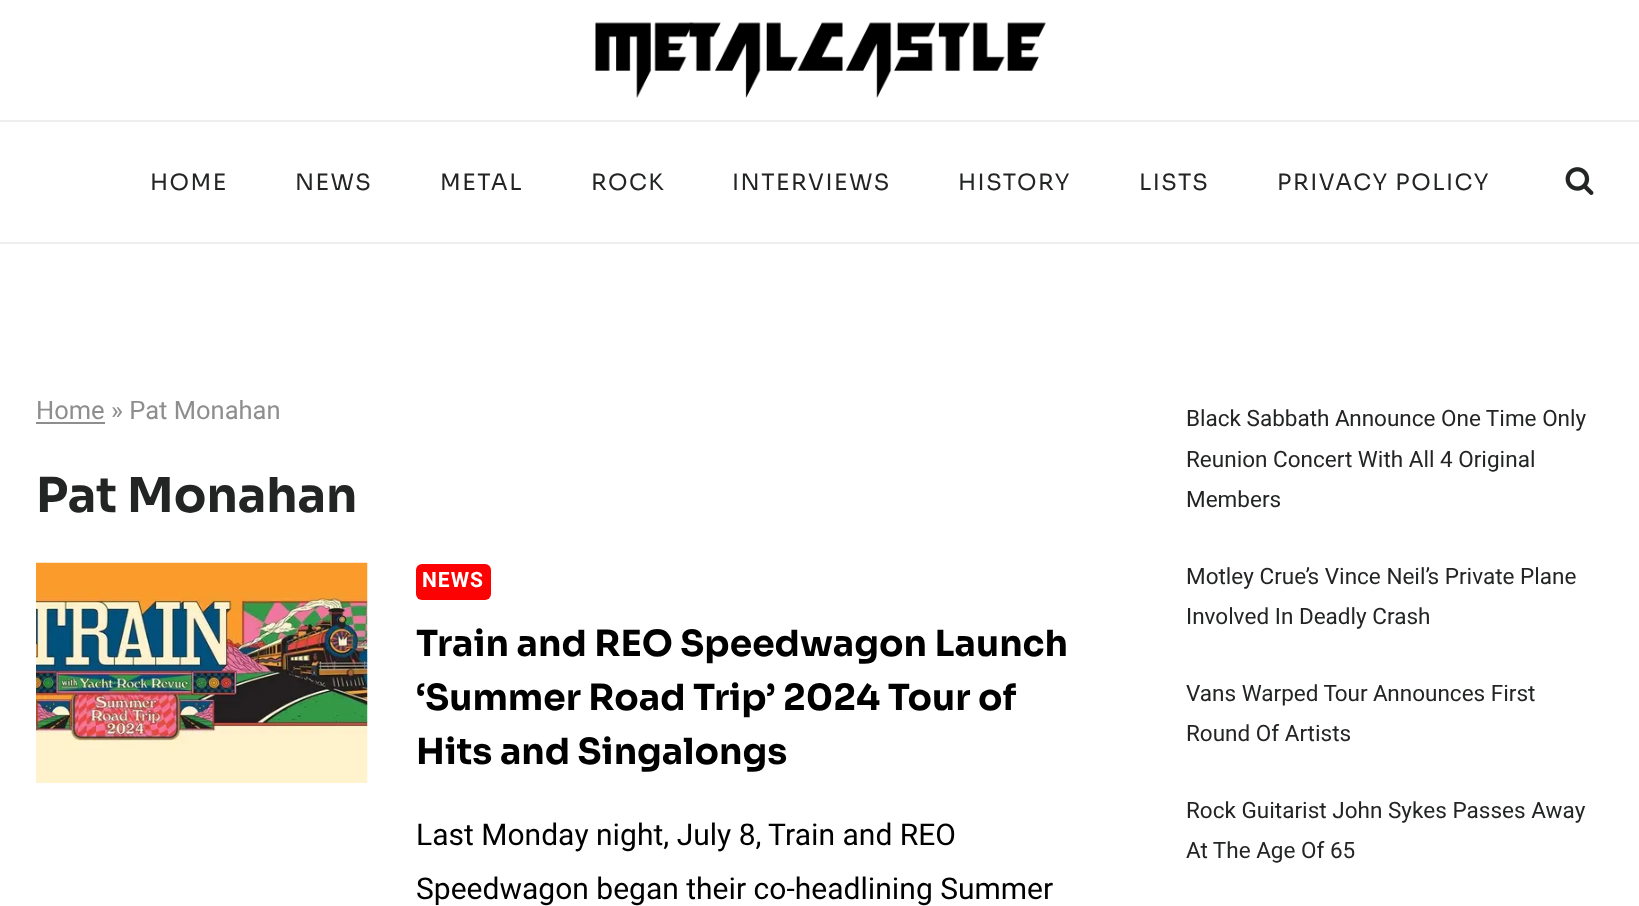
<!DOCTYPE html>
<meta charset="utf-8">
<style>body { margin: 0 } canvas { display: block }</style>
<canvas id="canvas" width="1639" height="906"></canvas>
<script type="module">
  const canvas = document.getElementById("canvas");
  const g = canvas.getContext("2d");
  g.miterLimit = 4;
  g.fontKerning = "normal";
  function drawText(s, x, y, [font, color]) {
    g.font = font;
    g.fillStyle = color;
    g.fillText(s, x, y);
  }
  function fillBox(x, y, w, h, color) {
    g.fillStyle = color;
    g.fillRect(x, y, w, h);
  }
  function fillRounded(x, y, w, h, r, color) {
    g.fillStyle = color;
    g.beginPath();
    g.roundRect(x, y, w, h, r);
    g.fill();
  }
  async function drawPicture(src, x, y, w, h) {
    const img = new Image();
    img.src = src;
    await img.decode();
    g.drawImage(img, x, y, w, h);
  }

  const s1 = ["22.5px Sora", "#232424"];
  const s2 = ["25.5px Heebo", "#8E8E8E"];
  const s3 = ["bold 48px Sora", "#232424"];
  const s4 = ["bold 21px Heebo", "#FFFFFF"];
  const s5 = ["bold 36px Sora", "#000000"];
  const s6 = ["30px Heebo", "#000000"];
  const s7 = ["22.5px Heebo", "#232424"];

  fillBox(0, 0, 1639, 906, "#FFFFFF");
  await drawPicture("pic1.png", 595, 22, 451, 76);
  fillBox(0, 120, 1639, 2, "#EEEEEE");
  fillBox(0, 242, 1639, 2, "#EEEEEE");
  g.letterSpacing = "1.5px";
  drawText("HOME", 150, 190, s1);
  drawText("NEWS", 295, 190, s1);
  drawText("METAL", 440, 190, s1);
  drawText("ROCK", 591, 190, s1);
  drawText("INTERVIEWS", 732, 190, s1);
  drawText("HISTORY", 958, 190, s1);
  drawText("LISTS", 1139, 190, s1);
  drawText("PRIVACY POLICY", 1277, 190, s1);
  await drawPicture("pic2.png", 1565, 167, 29, 28);
  g.letterSpacing = "0px";
  drawText("Home » Pat Monahan", 36, 419, s2);
  fillBox(36, 422, 69, 2, "#8E8E8E");
  drawText("Pat Monahan", 36, 512, s3);
  await drawPicture("pic3.png", 36, 562, 332, 221);
  fillRounded(416, 564, 75, 36, 6, "#FC0202");
  g.letterSpacing = "1px";
  drawText("NEWS", 422, 587, s4);
  g.letterSpacing = "0px";
  drawText("Train and REO Speedwagon Launch", 416, 656, s5);
  drawText("‘Summer Road Trip’ 2024 Tour of", 416, 710, s5);
  drawText("Hits and Singalongs", 416, 764, s5);
  drawText("Last Monday night, July 8, Train and REO", 416, 845, s6);
  drawText("Speedwagon began their co-headlining Summer", 416, 899, s6);
  drawText("Black Sabbath Announce One Time Only", 1186, 426, s7);
  drawText("Reunion Concert With All 4 Original", 1186, 467, s7);
  drawText("Members", 1186, 507, s7);
  drawText("Motley Crue’s Vince Neil’s Private Plane", 1186, 584, s7);
  drawText("Involved In Deadly Crash", 1186, 624, s7);
  drawText("Vans Warped Tour Announces First", 1186, 701, s7);
  drawText("Round Of Artists", 1186, 741, s7);
  drawText("Rock Guitarist John Sykes Passes Away", 1186, 818, s7);
  drawText("At The Age Of 65", 1186, 858, s7);
</script>
